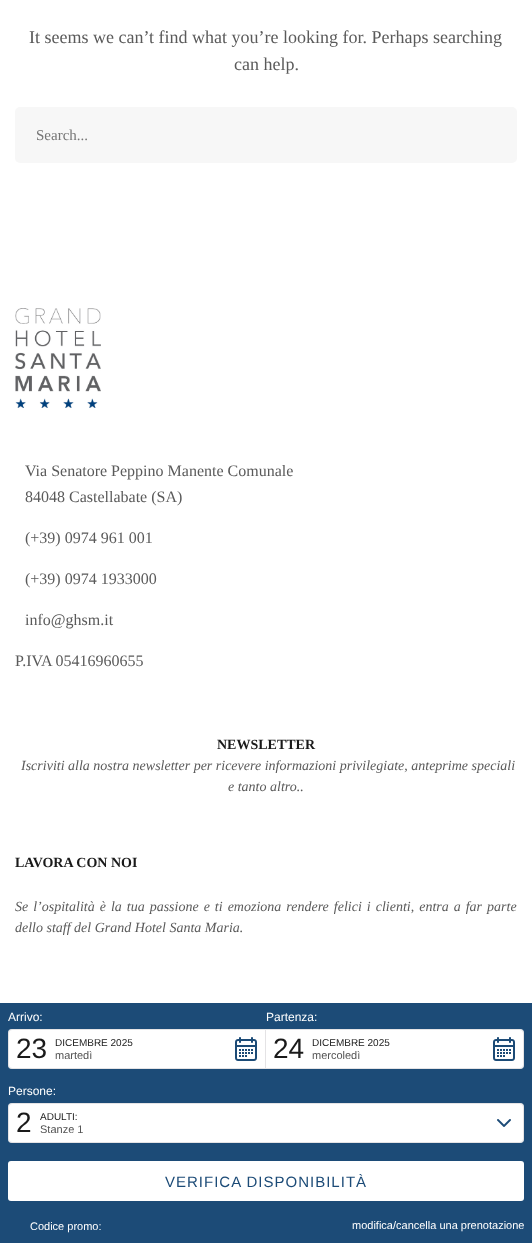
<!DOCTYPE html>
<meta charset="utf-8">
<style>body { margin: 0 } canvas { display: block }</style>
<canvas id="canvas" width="532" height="1243"></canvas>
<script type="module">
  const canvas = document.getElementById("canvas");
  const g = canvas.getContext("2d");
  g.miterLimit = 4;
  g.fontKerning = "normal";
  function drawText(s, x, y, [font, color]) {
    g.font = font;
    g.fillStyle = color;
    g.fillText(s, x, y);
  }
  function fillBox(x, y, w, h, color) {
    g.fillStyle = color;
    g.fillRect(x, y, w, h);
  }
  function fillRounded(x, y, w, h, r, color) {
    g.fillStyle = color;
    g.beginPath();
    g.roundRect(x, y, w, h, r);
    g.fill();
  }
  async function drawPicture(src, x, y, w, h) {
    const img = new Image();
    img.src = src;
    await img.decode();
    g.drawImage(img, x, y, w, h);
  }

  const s1 = ["18px Liberation Serif", "#5A5A5A"];
  const s2 = ["15px Liberation Serif", "#757575"];
  const s3 = ["16px Liberation Serif", "#5A5A5A"];
  const s4 = ["bold 14px Liberation Serif", "#1A1A1A"];
  const s5 = ["italic 14px Liberation Serif", "#5A5A5A"];
  const s6 = ["12px Liberation Sans", "#FFFFFF"];
  const s7 = ["28px Liberation Sans", "#1A1A1A"];
  const s8 = ["10px Liberation Sans", "#1A1A1A"];
  const s9 = ["11px Liberation Sans", "#535353"];
  const s10 = ["15px Liberation Sans", "#1C4B77"];
  const s11 = ["11px Liberation Sans", "#FFFFFF"];

  fillBox(0, 0, 532, 1243, "#FFFFFF");
  drawText("It seems we can’t find what you’re looking for. Perhaps searching", 29, 43, s1);
  drawText("can help.", 234, 70, s1);
  fillRounded(15, 107, 502, 56, 5, "#F7F7F7");
  drawText("Search...", 36, 140, s2);
  await drawPicture("pic1.png", 15, 308, 86, 100);
  drawText("Via Senatore Peppino Manente Comunale", 25, 476, s3);
  drawText("84048 Castellabate (SA)", 25, 502, s3);
  drawText("(+39) 0974 961 001", 25, 543, s3);
  drawText("(+39) 0974 1933000", 25, 584, s3);
  drawText("info@ghsm.it", 25, 625, s3);
  drawText("P.IVA 05416960655", 15, 666, s3);
  drawText("NEWSLETTER", 217, 749, s4);
  drawText("Iscriviti alla nostra newsletter per ricevere informazioni privilegiate, anteprime speciali", 21, 770, s5);
  drawText("e tanto altro..", 228, 791, s5);
  drawText("LAVORA CON NOI", 15, 867, s4);
  g.wordSpacing = "1.5px";
  drawText("Se l’ospitalità è la tua passione e ti emoziona rendere felici i clienti, entra a far parte", 15, 911, s5);
  g.wordSpacing = "0px";
  drawText("dello staff del Grand Hotel Santa Maria.", 15, 932, s5);
  fillBox(0, 1003, 532, 240, "#1C4B77");
  drawText("Arrivo:", 8, 1021, s6);
  g.beginPath();
  g.roundRect(8, 1029, 258, 40, [4, 0, 0, 4]);
  g.fill();
  g.beginPath();
  g.roundRect(8.5, 1029.5, 257, 39, [3.5, 0, 0, 3.5]);
  g.strokeStyle = "rgba(72, 68, 83, 0.15)";
  g.stroke();
  drawText("23", 16, 1058, s7);
  drawText("DICEMBRE 2025", 55, 1046, s8);
  drawText("martedì", 55, 1059, s9);
  await drawPicture("pic2.png", 235, 1037, 22, 24);
  drawText("Partenza:", 266, 1021, s6);
  g.beginPath();
  g.roundRect(265, 1029, 259, 40, [0, 4, 4, 0]);
  g.fill();
  g.beginPath();
  g.roundRect(265.5, 1029.5, 258, 39, [0, 3.5, 3.5, 0]);
  g.stroke();
  drawText("24", 273, 1058, s7);
  drawText("DICEMBRE 2025", 312, 1046, s8);
  drawText("mercoledì", 312, 1059, s9);
  await drawPicture("pic2.png", 493, 1037, 22, 24);
  drawText("Persone:", 8, 1095, s6);
  fillRounded(8, 1103, 516, 40, 4, "#FFFFFF");
  g.beginPath();
  g.roundRect(8.5, 1103.5, 515, 39, 3.5);
  g.stroke();
  drawText("2", 16, 1132, s7);
  drawText("ADULTI:", 40, 1120, s8);
  drawText("Stanze 1", 40, 1133, s9);
  await drawPicture("pic3.png", 497, 1119, 14, 8);
  fillRounded(8, 1161, 516, 40, 3, "#FFFFFF");
  g.letterSpacing = "1px";
  drawText("VERIFICA DISPONIBILITÀ", 165, 1187, s10);
  g.letterSpacing = "0px";
  drawText("Codice promo:", 30, 1230, s11);
  drawText("modifica/cancella una prenotazione", 352, 1229, s11);
</script>
